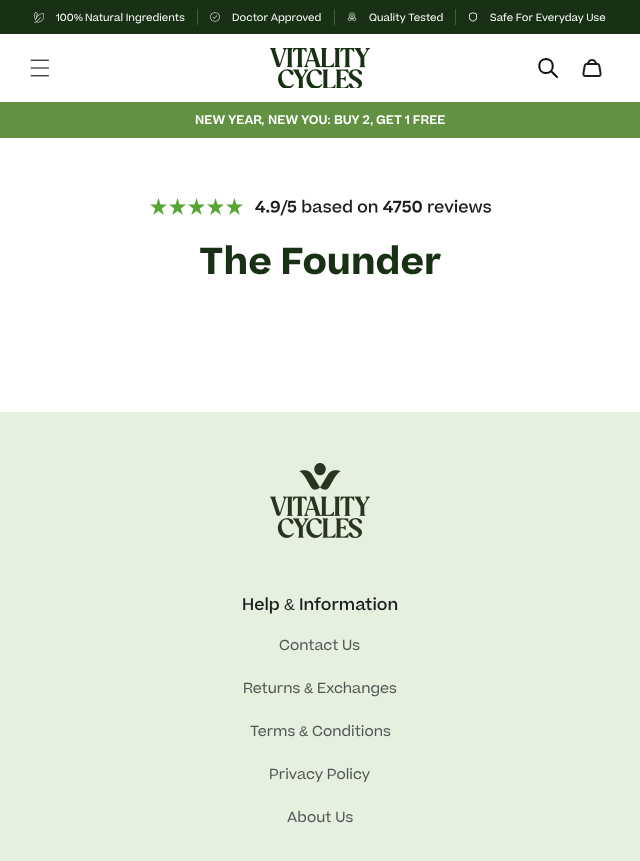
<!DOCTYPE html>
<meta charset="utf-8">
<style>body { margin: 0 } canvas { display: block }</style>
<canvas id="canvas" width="640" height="861"></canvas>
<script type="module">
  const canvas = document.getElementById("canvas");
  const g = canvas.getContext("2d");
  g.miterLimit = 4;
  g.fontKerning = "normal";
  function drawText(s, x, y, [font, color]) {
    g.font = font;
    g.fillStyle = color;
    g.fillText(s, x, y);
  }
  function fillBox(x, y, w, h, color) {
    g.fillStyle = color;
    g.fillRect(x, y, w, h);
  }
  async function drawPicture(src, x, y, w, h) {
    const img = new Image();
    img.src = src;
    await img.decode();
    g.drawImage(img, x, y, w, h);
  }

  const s1 = ["10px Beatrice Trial", "#FFFFFF"];
  const s2 = ["10px Liberation Sans", "#FFFFFF"];
  const s3 = ["600 12px Beatrice Trial", "#FFFFFF"];
  const s4 = ["bold 12px Liberation Sans", "#FFFFFF"];
  const s5 = ["bold 36px Beatrice Trial", "#183013"];
  const s6 = ["500 16px Beatrice Trial", "#1D1F1E"];
  const s7 = ["16px Liberation Sans", "#1D1F1E"];
  const s8 = ["14px Beatrice Trial", "#545454"];
  const s9 = ["14px Liberation Sans", "#545454"];

  fillBox(0, 0, 640, 861, "#FFFFFF");
  fillBox(0, 0, 640, 34, "#183013");
  await drawPicture("pic1.png", 34, 12, 10, 11);
  drawText("100", 56, 21, s1);
  drawText("%", 74, 21, s2);
  drawText("Natural Ingredients", 85, 21, s1);
  fillBox(197, 9, 1, 16, "#465942");
  await drawPicture("pic2.png", 210, 12, 10, 10);
  drawText("Doctor Approved", 232, 21, s1);
  fillBox(334, 9, 1, 16, "#465942");
  await drawPicture("pic3.png", 347, 12, 10, 10);
  drawText("Quality Tested", 369, 21, s1);
  fillBox(455, 9, 1, 16, "#465942");
  await drawPicture("pic4.png", 469, 12, 8, 10);
  drawText("Safe For Everyday Use", 490, 21, s1);
  await drawPicture("pic5.png", 30, 59, 20, 18);
  await drawPicture("pic6.png", 270, 48, 100, 40);
  g.beginPath();
  g.moveTo(551, 71);
  g.lineTo(557, 77);
  g.moveTo(546, 73);
  g.bezierCurveTo(537, 73, 537, 59, 546, 59);
  g.bezierCurveTo(555, 59, 555, 73, 546, 73);
  g.closePath();
  g.strokeStyle = "#0D0D0D";
  g.lineWidth = 2;
  g.lineCap = "round";
  g.lineJoin = "round";
  g.stroke();
  await drawPicture("pic7.png", 582, 59, 20, 18);
  fillBox(0, 102, 640, 36, "#629142");
  drawText("NEW YEAR", 195, 124, s3);
  drawText(",", 261, 124, s4);
  drawText("NEW YOU", 268, 124, s3);
  drawText(":", 327, 124, s4);
  drawText("BUY 2", 334, 124, s3);
  drawText(",", 370, 124, s4);
  drawText("GET 1 FREE", 376, 124, s3);
  await drawPicture("pic8.png", 150, 198, 342, 18);
  drawText("The Founder", 199, 274, s5);
  fillBox(0, 412, 640, 449, "#E3F1DE");
  await drawPicture("pic9.png", 270, 463, 100, 75);
  drawText("Help", 242, 610, s6);
  drawText("&", 284, 610, s7);
  drawText("Information", 299, 610, s6);
  drawText("Contact Us", 279, 650, s8);
  drawText("Returns", 243, 693, s8);
  drawText("&", 304, 693, s9);
  drawText("Exchanges", 317, 693, s8);
  drawText("Terms", 250, 736, s8);
  drawText("&", 299, 736, s9);
  drawText("Conditions", 312, 736, s8);
  drawText("Privacy Policy", 269, 779, s8);
  drawText("About Us", 287, 822, s8);
</script>
